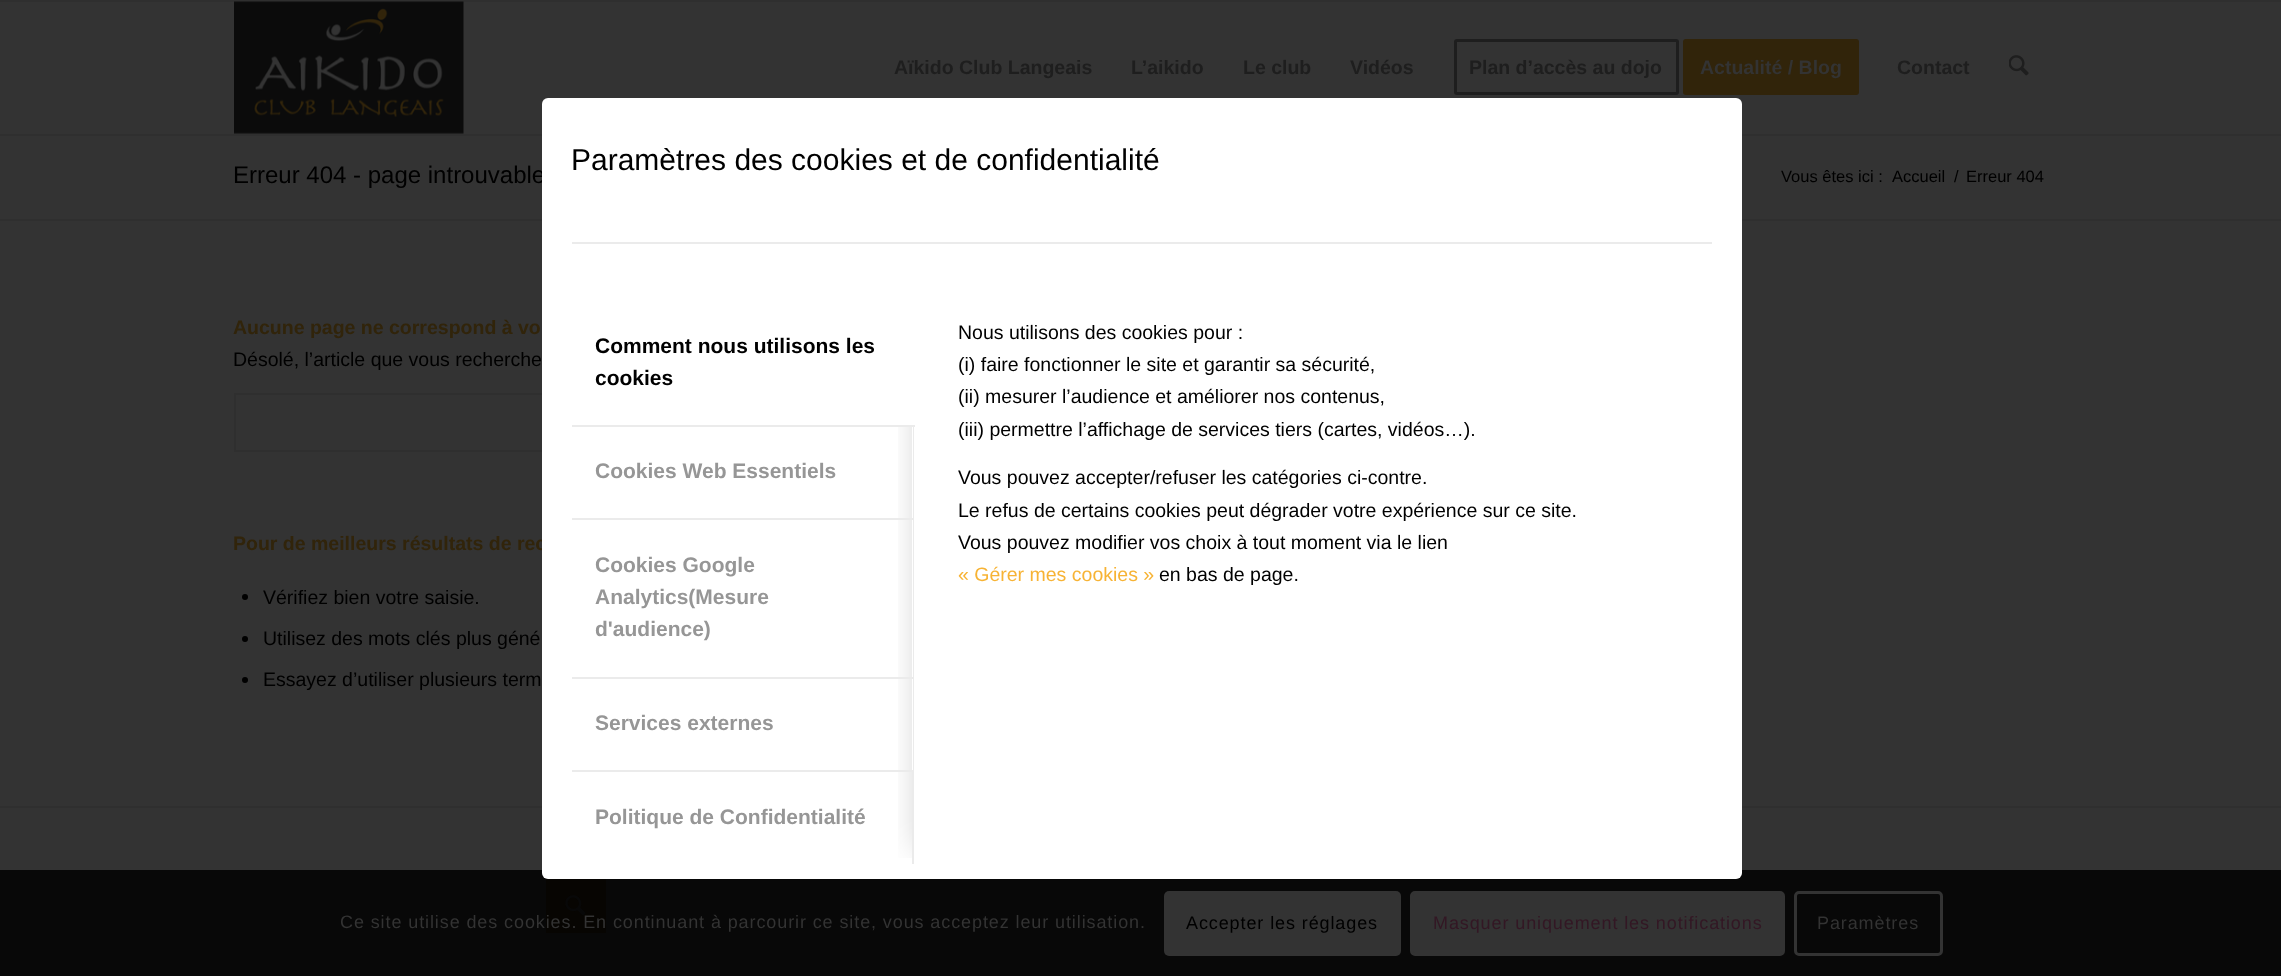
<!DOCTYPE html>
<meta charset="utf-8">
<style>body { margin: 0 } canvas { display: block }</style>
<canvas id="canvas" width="2281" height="976"></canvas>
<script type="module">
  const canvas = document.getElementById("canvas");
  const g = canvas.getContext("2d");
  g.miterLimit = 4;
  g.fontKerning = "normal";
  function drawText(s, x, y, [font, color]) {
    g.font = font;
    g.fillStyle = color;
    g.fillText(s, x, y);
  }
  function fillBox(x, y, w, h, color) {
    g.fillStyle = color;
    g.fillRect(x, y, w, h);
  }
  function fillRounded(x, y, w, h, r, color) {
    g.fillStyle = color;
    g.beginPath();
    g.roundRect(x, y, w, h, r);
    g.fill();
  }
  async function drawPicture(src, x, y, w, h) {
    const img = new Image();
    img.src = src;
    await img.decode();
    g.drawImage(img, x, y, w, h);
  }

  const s1 = ["bold 19.5px Liberation Sans", "#1E1E1E"];
  const s2 = ["bold 19.5px Liberation Sans", "#333333"];
  const s3 = ["24px Liberation Sans", "#000000"];
  const s4 = ["16.5px Liberation Sans", "#000000"];
  const s5 = ["bold 19.5px Liberation Sans", "#31240A"];
  const s6 = ["19.5px Liberation Sans", "#000000"];
  const s7 = ["30px Liberation Sans", "#000000"];
  const s8 = ["bold 21px Liberation Sans", "#000000"];
  const s9 = ["bold 21px Liberation Sans", "#969696"];
  const s10 = ["19.5px Liberation Sans", "#F7B334"];
  const s11 = ["18px Liberation Sans", "#333333"];
  const s12 = ["18px Liberation Sans", "#000000"];
  const s13 = ["18px Liberation Sans", "#331724"];

  fillBox(0, 0, 2281, 976, "#333333");
  fillBox(0, 870, 2281, 106, "#080808");
  fillBox(0, 0, 2281, 2, "#2F2F2F");
  fillBox(0, 134, 2281, 2, "#2F2F2F");
  await drawPicture("pic1.png", 234, 1, 230, 133);
  drawText("Aïkido Club Langeais", 894, 74, s1);
  drawText("L’aikido", 1131, 74, s1);
  drawText("Le club", 1243, 74, s1);
  drawText("Vidéos", 1350, 74, s1);
  g.beginPath();
  g.roundRect(1455.5, 40.5, 222, 53, 1.5);
  g.strokeStyle = "#1E1E1E";
  g.lineWidth = 3;
  g.stroke();
  drawText("Plan d’accès au dojo", 1469, 74, s1);
  g.fillStyle = "#31240A";
  g.beginPath();
  g.roundRect(1684.5, 40.5, 173, 53, 1.5);
  g.fill();
  g.strokeStyle = "#31240A";
  g.stroke();
  drawText("Actualité / Blog", 1700, 74, s2);
  drawText("Contact", 1897, 74, s1);
  await drawPicture("pic2.png", 2009, 55, 20, 21);
  drawText("Erreur 404 - page introuvable", 233, 183, s3);
  drawText("Vous êtes ici :", 1781, 182, s4);
  drawText("Accueil", 1892, 182, s4);
  drawText("/", 1954, 182, s4);
  drawText("Erreur 404", 1966, 182, s4);
  fillBox(0, 219, 2281, 2, "#2F2F2F");
  drawText("Aucune page ne correspond à vo", 233, 334, s5);
  drawText("Désolé, l’article que vous recherche", 233, 366, s6);
  g.strokeStyle = "#2F2F2F";
  g.lineWidth = 2;
  g.strokeRect(235, 394, 448, 57);
  drawText("Pour de meilleurs résultats de rec", 233, 550, s5);
  g.fillStyle = "#000000";
  g.beginPath();
  g.arc(245, 597, 3, 0, Math.PI * 2);
  g.fill();
  drawText("Vérifiez bien votre saisie.", 263, 604, s6);
  g.beginPath();
  g.arc(245, 639, 3, 0, Math.PI * 2);
  g.fill();
  drawText("Utilisez des mots clés plus géné", 263, 645, s6);
  g.beginPath();
  g.arc(245, 680, 3, 0, Math.PI * 2);
  g.fill();
  drawText("Essayez d’utiliser plusieurs term", 263, 686, s6);
  fillBox(0, 806, 2281, 2, "#2F2F2F");
  fillBox(546, 878, 60, 55, "#070502");
  await drawPicture("pic3.png", 565, 895, 21, 21);
  fillRounded(542, 98, 1200, 781, 6, "#FFFFFF");
  drawText("Paramètres des cookies et de confidentialité", 571, 170, s7);
  fillBox(572, 242, 1140, 2, "#EBEBEB");
  fillRounded(1164, 891, 237, 65, 5, "#333333");
  g.beginPath();
  g.roundRect(1411.5, 892.5, 372, 62, 3.5);
  g.fill();
  g.strokeStyle = "#333333";
  g.lineWidth = 3;
  g.stroke();
  g.save();
  g.beginPath();
  g.rect(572, 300, 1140, 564);
  g.clip();
  g.beginPath();
  g.rect(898, 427, 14, 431);
  g.clip();
  g.fillStyle = "rgba(0, 0, 0, 0.2)";
  g.filter = "blur(15px)";
  g.beginPath();
  g.rect(917, 315, 768, 534);
  g.fill();
  g.filter = "none";
  g.restore();
  fillBox(913, 425, 1, 94, "#EBEBEB");
  g.fillStyle = "#FFFFFF";
  g.beginPath();
  g.roundRect(572, 300, 343, 126, [3, 0, 0, 0]);
  g.fill();
  fillBox(572, 425, 343, 2, "#EBEBEB");
  drawText("Comment nous utilisons les", 595, 353, s8);
  drawText("cookies", 595, 385, s8);
  fillBox(572, 518, 342, 2, "#EBEBEB");
  drawText("Cookies Web Essentiels", 595, 478, s9);
  fillBox(913, 518, 1, 160, "#EBEBEB");
  fillBox(572, 677, 342, 2, "#EBEBEB");
  drawText("Cookies Google", 595, 572, s9);
  drawText("Analytics(Mesure", 595, 604, s9);
  drawText("d'audience)", 595, 636, s9);
  fillBox(913, 677, 1, 94, "#EBEBEB");
  fillBox(572, 770, 342, 2, "#EBEBEB");
  drawText("Services externes", 595, 730, s9);
  fillBox(912, 770, 2, 94, "#EBEBEB");
  drawText("Politique de Confidentialité", 595, 824, s9);
  drawText("Nous utilisons des cookies pour :", 958, 339, s6);
  drawText("(i) faire fonctionner le site et garantir sa sécurité,", 958, 371, s6);
  drawText("(ii) mesurer l’audience et améliorer nos contenus,", 958, 403, s6);
  drawText("(iii) permettre l’affichage de services tiers (cartes, vidéos…).", 958, 436, s6);
  drawText("Vous pouvez accepter/refuser les catégories ci-contre.", 958, 484, s6);
  drawText("Le refus de certains cookies peut dégrader votre expérience sur ce site.", 958, 517, s6);
  drawText("Vous pouvez modifier vos choix à tout moment via le lien", 958, 549, s6);
  drawText("« Gérer mes cookies »", 958, 581, s10);
  drawText("en bas de page.", 1159, 581, s6);
  g.letterSpacing = "0.9px";
  drawText("Ce site utilise des cookies. En continuant à parcourir ce site, vous acceptez leur utilisation.", 340, 928, s11);
  drawText("Accepter les réglages", 1186, 929, s12);
  drawText("Masquer uniquement les notifications", 1433, 929, s13);
  g.beginPath();
  g.roundRect(1795.5, 892.5, 146, 62, 3.5);
  g.stroke();
  drawText("Paramètres", 1817, 929, s11);
</script>
